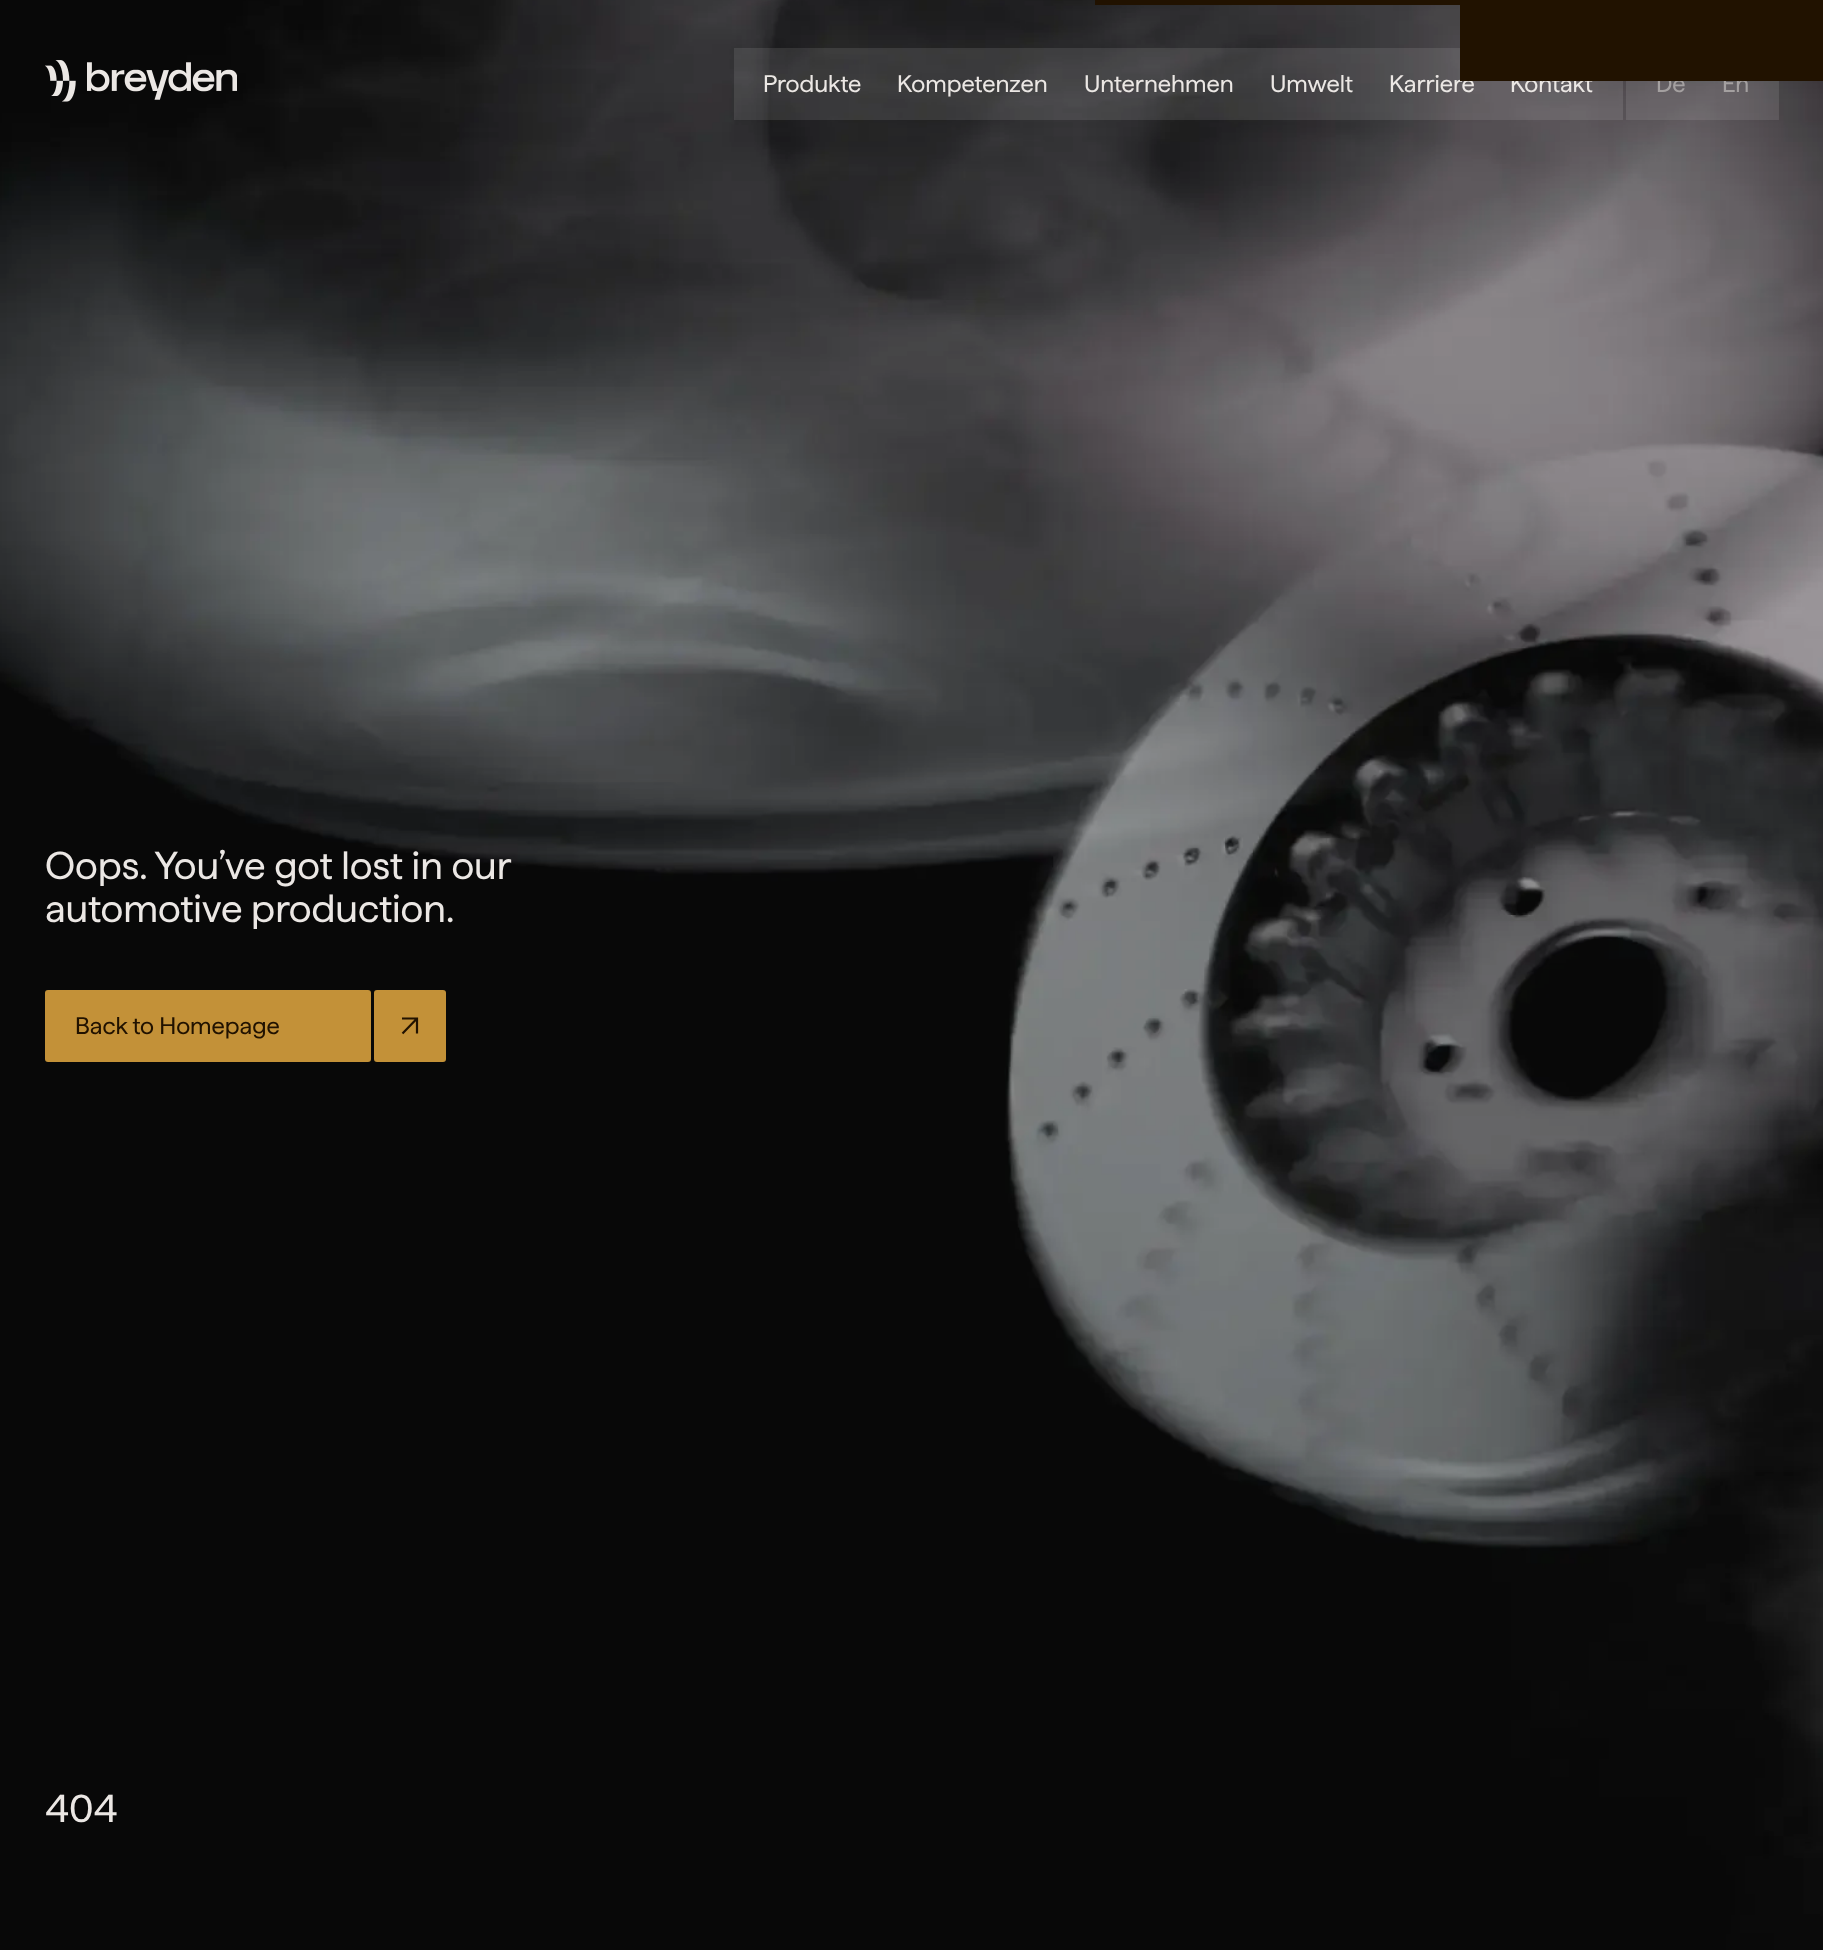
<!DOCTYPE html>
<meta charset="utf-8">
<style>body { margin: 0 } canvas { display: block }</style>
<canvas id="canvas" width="1823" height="1950"></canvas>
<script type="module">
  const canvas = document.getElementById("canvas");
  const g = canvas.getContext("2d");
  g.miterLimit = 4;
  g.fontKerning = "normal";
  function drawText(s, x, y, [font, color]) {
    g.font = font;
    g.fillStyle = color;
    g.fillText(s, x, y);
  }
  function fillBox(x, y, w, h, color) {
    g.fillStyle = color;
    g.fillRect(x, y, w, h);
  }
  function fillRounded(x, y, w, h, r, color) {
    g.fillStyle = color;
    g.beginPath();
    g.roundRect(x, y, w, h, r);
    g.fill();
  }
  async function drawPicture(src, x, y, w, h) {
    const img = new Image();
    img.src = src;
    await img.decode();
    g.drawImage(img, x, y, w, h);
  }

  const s1 = ["24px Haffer", "#EBE7E4"];
  const s2 = ["24px Haffer", "#A4A0A0"];
  const s3 = ["39px Haffer", "#EBE7E4"];
  const s4 = ["24px Haffer", "#211200"];

  fillBox(0, 0, 1823, 1950, "#FFFFFF");
  await drawPicture("pic3.png", 0, 0, 1823, 1950);
  await drawPicture("pic1.png", 45, 60, 31, 42);
  await drawPicture("pic2.png", 87, 62, 150, 38);
  fillBox(1095, 0, 365, 5, "#211200");
  fillBox(734, 48, 889, 72, "rgba(255, 255, 255, 0.1)");
  drawText("Karriere", 1389, 92, s1);
  drawText("Kontakt", 1510, 92, s1);
  fillBox(1626, 81, 153, 39, "rgba(255, 255, 255, 0.1)");
  drawText("De", 1656, 92, s2);
  drawText("En", 1722, 92, s2);
  fillBox(1460, 0, 363, 81, "#211200");
  drawText("Produkte", 763, 92, s1);
  drawText("Kompetenzen", 897, 92, s1);
  drawText("Unternehmen", 1084, 92, s1);
  drawText("Umwelt", 1270, 92, s1);
  drawText("Oops. You’ve got lost in our", 45, 879, s3);
  drawText("automotive production.", 45, 922, s3);
  fillRounded(45, 990, 326, 72, 3, "#C39138");
  drawText("Back to Homepage", 75, 1034, s4);
  fillRounded(374, 990, 72, 72, 3, "#C39138");
  g.beginPath();
  g.moveTo(402, 1018.5);
  g.lineTo(417, 1018.5);
  g.lineTo(417, 1033.5);
  g.moveTo(417, 1018.5);
  g.lineTo(402.5, 1033.5);
  g.strokeStyle = "#211200";
  g.lineWidth = 2.2;
  g.stroke();
  drawText("404", 45, 1822, s3);
</script>
